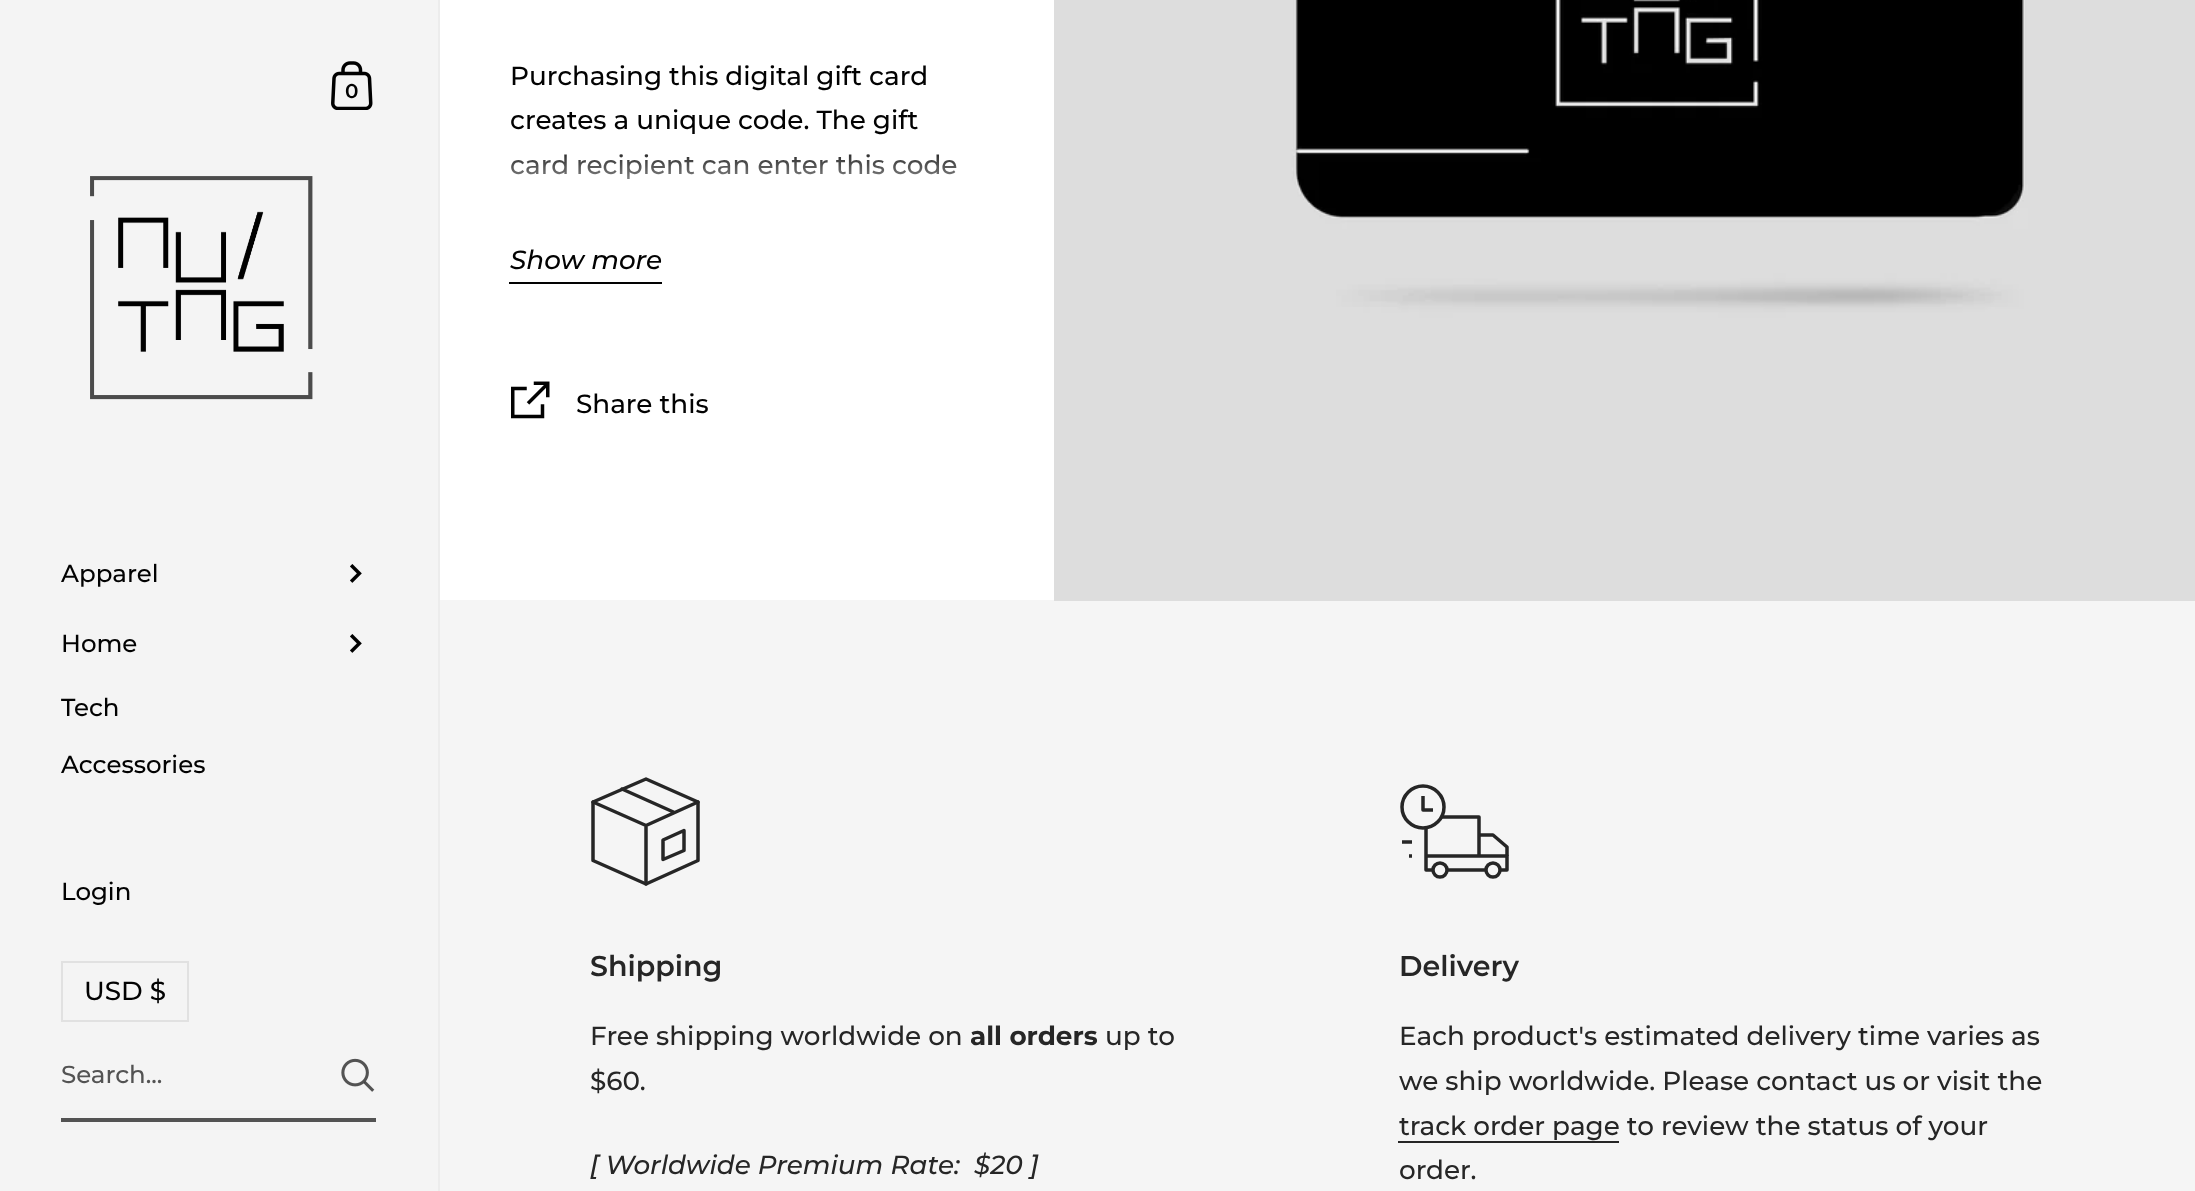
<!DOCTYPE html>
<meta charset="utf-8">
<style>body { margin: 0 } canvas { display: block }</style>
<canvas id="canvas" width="2195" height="1191"></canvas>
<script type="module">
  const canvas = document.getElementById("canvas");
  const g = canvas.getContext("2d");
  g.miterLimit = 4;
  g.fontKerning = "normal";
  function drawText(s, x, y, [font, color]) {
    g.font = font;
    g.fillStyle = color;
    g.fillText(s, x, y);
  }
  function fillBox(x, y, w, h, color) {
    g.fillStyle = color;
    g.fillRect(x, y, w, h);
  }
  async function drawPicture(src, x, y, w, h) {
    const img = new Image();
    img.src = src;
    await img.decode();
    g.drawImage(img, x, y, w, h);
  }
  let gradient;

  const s1 = ["600 20px Montserrat", "#020202"];
  const s2 = ["500 26.25px Montserrat", "#020202"];
  const s3 = ["500 24.5px Montserrat", "#020202"];
  const s4 = ["500 24.5px Montserrat", "#535353"];
  const s5 = ["italic 500 26.25px Montserrat", "#020202"];
  const s6 = ["600 28.5px Montserrat", "#262626"];
  const s7 = ["500 26.25px Montserrat", "#262626"];
  const s8 = ["bold 26.25px Montserrat", "#262626"];
  const s9 = ["italic 500 26.25px Montserrat", "#262626"];

  fillBox(0, 0, 2195, 1191, "#FFFFFF");
  fillBox(0, 0, 438, 1191, "#F4F4F4");
  fillBox(438, 0, 2, 1191, "#ECECEC");
  await drawPicture("pic1.png", 331, 61, 42, 49);
  drawText("0", 345, 98, s1);
  g.strokeStyle = "#E1E1E1";
  g.lineWidth = 2;
  g.strokeRect(62, 962, 126, 59);
  drawText("USD $", 84, 1000, s2);
  await drawPicture("pic2.png", 90, 176, 223, 224);
  drawText("Apparel", 61, 582, s3);
  await drawPicture("pic3.png", 350, 564, 12, 19);
  drawText("Home", 61, 652, s3);
  await drawPicture("pic3.png", 350, 634, 12, 19);
  drawText("Tech", 61, 716, s3);
  drawText("Accessories", 61, 773, s3);
  drawText("Login", 61, 900, s3);
  fillBox(61, 1118, 315, 4, "#535353");
  drawText("Search...", 61, 1083, s4);
  await drawPicture("pic4.png", 341, 1058, 34, 34);
  drawText("Purchasing this digital gift card", 510, 85, s2);
  drawText("creates a unique code. The gift", 510, 129, s2);
  drawText("card recipient can enter this code", 510, 174, s2);
  gradient = g.createLinearGradient(746, 228, 746, 140);
  gradient.addColorStop(0, "#FFFFFF");
  gradient.addColorStop(0.1, "#FFFFFF");
  gradient.addColorStop(1, "rgba(255, 255, 255, 0)");
  g.fillStyle = gradient;
  g.fillRect(510, 154, 446, 26);
  fillBox(509, 282, 153, 2, "#020202");
  drawText("Show more", 510, 269, s5);
  await drawPicture("pic5.png", 511, 381, 39, 38);
  drawText("Share this", 576, 413, s2);
  fillBox(440, 600, 1755, 591, "#F5F5F5");
  await drawPicture("pic6.png", 1054, 0, 1141, 601);
  g.beginPath();
  g.moveTo(698, 802);
  g.lineTo(646, 779);
  g.lineTo(593, 802);
  g.lineTo(593, 860.5);
  g.lineTo(646, 884);
  g.lineTo(698, 860.5);
  g.closePath();
  g.strokeStyle = "#262626";
  g.lineWidth = 3.5;
  g.lineJoin = "round";
  g.stroke();
  g.beginPath();
  g.moveTo(593, 802);
  g.lineTo(646, 825.5);
  g.lineTo(698, 802);
  g.moveTo(622, 789);
  g.lineTo(674.5, 812.5);
  g.moveTo(646, 825.5);
  g.lineTo(646, 884);
  g.lineCap = "round";
  g.stroke();
  g.beginPath();
  g.moveTo(684, 830.5);
  g.lineTo(663, 840);
  g.lineTo(663, 859.5);
  g.lineTo(684, 850.5);
  g.closePath();
  g.lineCap = "butt";
  g.stroke();
  drawText("Shipping", 590, 976, s6);
  drawText("Free shipping worldwide on", 590, 1045, s7);
  drawText("all orders", 970, 1045, s8);
  drawText("up to", 1105, 1045, s7);
  drawText("$60.", 590, 1090, s7);
  drawText("[ Worldwide Premium Rate:  $20 ]", 590, 1174, s9);
  g.beginPath();
  g.moveTo(1507, 856);
  g.lineTo(1507, 847);
  g.lineTo(1493, 835);
  g.lineTo(1479, 835);
  g.stroke();
  g.beginPath();
  g.arc(1440, 870, 7, 0, Math.PI * 2);
  g.stroke();
  g.beginPath();
  g.arc(1493, 870, 7, 0, Math.PI * 2);
  g.stroke();
  g.beginPath();
  g.moveTo(1486, 870);
  g.lineTo(1447, 870);
  g.moveTo(1433, 870);
  g.lineTo(1426, 870);
  g.lineTo(1426, 856);
  g.lineTo(1507, 856);
  g.lineTo(1507, 870);
  g.lineTo(1500, 870);
  g.moveTo(1441, 817);
  g.lineTo(1479, 817);
  g.lineTo(1479, 856);
  g.moveTo(1426, 856);
  g.lineTo(1426, 827.5);
  g.moveTo(1402, 842);
  g.lineTo(1412, 842);
  g.moveTo(1409, 856);
  g.lineTo(1412, 856);
  g.stroke();
  g.beginPath();
  g.arc(1423, 807, 21, 0, Math.PI * 2);
  g.stroke();
  g.beginPath();
  g.moveTo(1423, 796);
  g.lineTo(1423, 810);
  g.lineTo(1433, 810);
  g.stroke();
  drawText("Delivery", 1399, 976, s6);
  drawText("Each product's estimated delivery time varies as", 1399, 1045, s7);
  drawText("we ship worldwide. Please contact us or visit the", 1399, 1090, s7);
  drawText("track order page to review the status of your", 1399, 1135, s7);
  fillBox(1398, 1141, 221, 2, "#262626");
  drawText("order.", 1399, 1179, s7);
</script>
